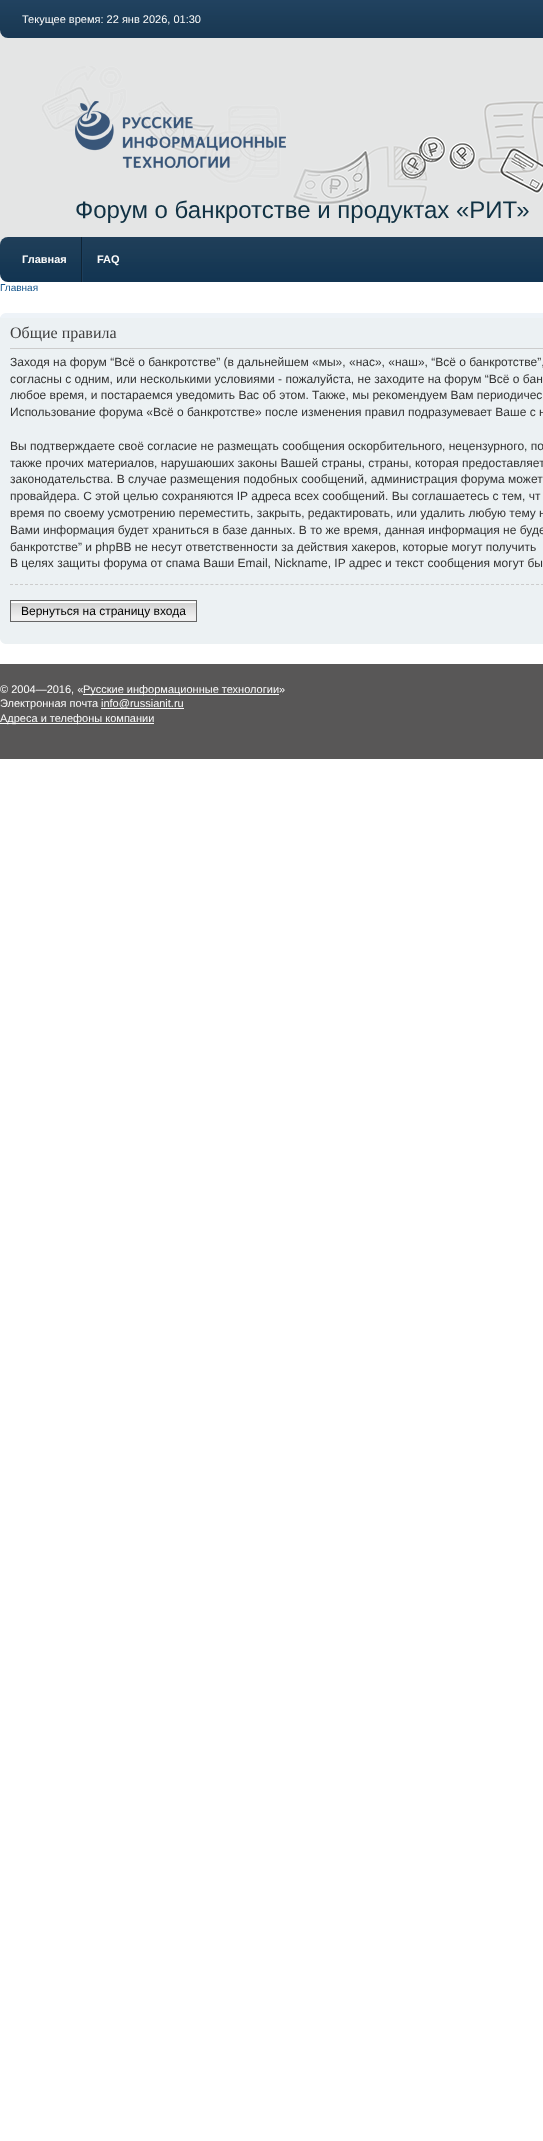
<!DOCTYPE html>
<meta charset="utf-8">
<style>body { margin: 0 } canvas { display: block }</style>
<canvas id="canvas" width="543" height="2141"></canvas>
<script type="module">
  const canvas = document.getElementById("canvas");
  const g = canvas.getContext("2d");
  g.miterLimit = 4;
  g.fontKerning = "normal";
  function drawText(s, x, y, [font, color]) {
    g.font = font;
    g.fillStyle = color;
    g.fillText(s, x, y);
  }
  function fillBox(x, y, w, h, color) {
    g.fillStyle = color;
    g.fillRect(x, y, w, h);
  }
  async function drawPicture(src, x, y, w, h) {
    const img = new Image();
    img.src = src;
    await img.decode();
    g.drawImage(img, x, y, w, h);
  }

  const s1 = ["11px Liberation Sans", "#FBFBFB"];
  const s2 = ["24px Liberation Sans", "#103143"];
  const s3 = ["bold 11px Liberation Sans", "#FBFBFB"];
  const s4 = ["10px Liberation Sans", "#105289"];
  const s5 = ["16px Liberation Serif", "#3F3F3F"];
  const s6 = ["12px Liberation Sans", "#333333"];
  const s7 = ["12px Liberation Sans", "#000000"];

  fillBox(0, 0, 543, 2141, "#FFFFFF");
  fillBox(0, 30, 543, 215, "#E4E5E5");
  await drawPicture("pic1.png", 0, 0, 543, 38);
  drawText("Текущее время: 22 янв 2026, 01:30", 22, 23, s1);
  await drawPicture("pic2.png", 42, 66, 501, 154);
  await drawPicture("pic3.png", 75, 101, 211, 67);
  drawText("Форум о банкротстве и продуктах «РИТ»", 75, 218, s2);
  await drawPicture("pic4.png", 0, 237, 543, 45);
  fillBox(81, 237, 1, 45, "#102435");
  drawText("Главная", 22, 263, s3);
  fillBox(82, 237, 1, 45, "#1C3E5C");
  drawText("FAQ", 97, 263, s3);
  drawText("Главная", 0, 291, s4);
  fillBox(0, 318, 543, 326, "#ECF1F3");
  fillBox(0, 313, 543, 5, "#EEF3F8");
  await drawPicture("pic5.png", 0, 313, 5, 4);
  fillBox(10, 348, 533, 1, "#CCCCCC");
  drawText("Общие правила", 10, 338, s5);
  drawText("Заходя на форум “Всё о банкротстве” (в дальнейшем «мы», «нас», «наш», “Всё о банкротстве”,", 10, 366, s6);
  drawText("согласны с одним, или несколькими условиями - пожалуйста, не заходите на форум “Всё о бан", 10, 383, s6);
  drawText("любое время, и постараемся уведомить Вас об этом. Также, мы рекомендуем Вам периодичес", 10, 399, s6);
  drawText("Использование форума «Всё о банкротстве» после изменения правил подразумевает Ваше с н", 10, 416, s6);
  drawText("Вы подтверждаете своё согласие не размещать сообщения оскорбительного, нецензурного, по", 10, 450, s6);
  drawText("также прочих материалов, нарушаюших законы Вашей страны, страны, которая предоставляет", 10, 467, s6);
  drawText("законодательства. В случае размещения подобных сообщений, администрация форума может", 10, 483, s6);
  drawText("провайдера. С этой целью сохраняются IP адреса всех сообщений. Вы соглашаетесь с тем, чт", 10, 500, s6);
  drawText("время по своему усмотрению переместить, закрыть, редактировать, или удалить любую тему н", 10, 517, s6);
  drawText("Вами информация будет храниться в базе данных. В то же время, данная информация не буде", 10, 534, s6);
  drawText("банкротстве” и phpBB не несут ответственности за действия хакеров, которые могут получить", 10, 551, s6);
  drawText("В целях защиты форума от спама Ваши Email, Nickname, IP адрес и текст сообщения могут бы", 10, 567, s6);
  g.beginPath();
  g.moveTo(10, 584.5);
  g.lineTo(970, 584.5);
  g.strokeStyle = "#CCCCCC";
  g.setLineDash([3, 2.01]);
  g.stroke();
  await drawPicture("pic6.png", 11, 602, 185, 19);
  fillBox(11, 601, 185, 1, "#FAFAFA");
  g.strokeStyle = "#666666";
  g.setLineDash([]);
  g.strokeRect(10.5, 600.5, 186, 21);
  drawText("Вернуться на страницу входа", 21, 615, s7);
  await drawPicture("pic7.png", 0, 639, 5, 5);
  fillBox(0, 664, 543, 95, "#585757");
  drawText("© 2004—2016, «", 0, 693, s1);
  fillBox(83, 694, 196, 1, "#FBFBFB");
  drawText("Русские информационные технологии»", 83, 693, s1);
  drawText("Электронная почта", 0, 707, s1);
  fillBox(101, 708, 83, 1, "#FBFBFB");
  drawText("info@russianit.ru", 101, 707, s1);
  fillBox(0, 723, 154, 1, "#FBFBFB");
  drawText("Адреса и телефоны компании", 0, 722, s1);
</script>
